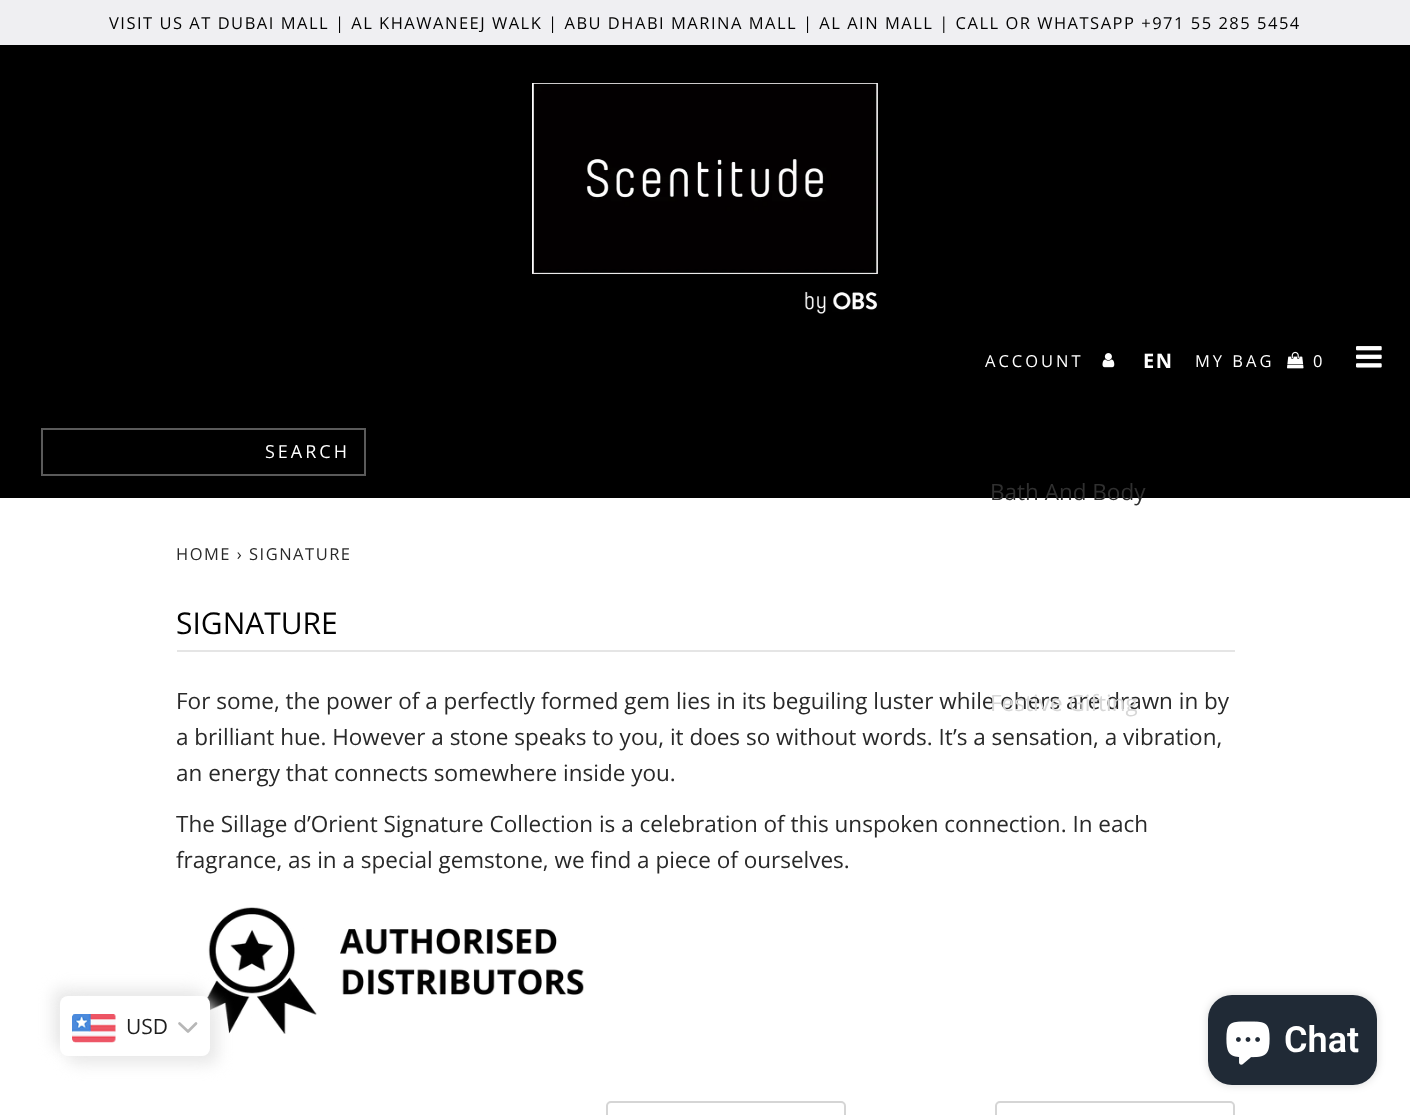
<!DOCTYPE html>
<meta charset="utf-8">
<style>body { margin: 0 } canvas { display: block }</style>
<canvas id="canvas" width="1410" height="1115"></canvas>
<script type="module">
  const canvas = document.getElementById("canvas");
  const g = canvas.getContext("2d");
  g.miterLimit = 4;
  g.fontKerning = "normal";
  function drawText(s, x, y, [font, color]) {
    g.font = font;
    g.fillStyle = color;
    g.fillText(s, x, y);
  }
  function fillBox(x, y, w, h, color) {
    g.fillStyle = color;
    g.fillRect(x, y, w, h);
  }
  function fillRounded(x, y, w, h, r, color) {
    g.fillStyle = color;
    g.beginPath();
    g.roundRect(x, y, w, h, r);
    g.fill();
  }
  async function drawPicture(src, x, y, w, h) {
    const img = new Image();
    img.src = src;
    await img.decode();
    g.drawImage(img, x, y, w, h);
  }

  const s1 = ["16.5px Open Sans", "#020202"];
  const s2 = ["16.5px Open Sans", "#FFFFFF"];
  const s3 = ["bold 20px Open Sans", "#FFFFFF"];
  const s4 = ["18px Open Sans", "#FFFFFF"];
  const s5 = ["16.5px Open Sans", "#292929"];
  const s6 = ["30px Open Sans", "#020202"];
  const s7 = ["22.5px Open Sans", "#292929"];
  const s8 = ["22.5px Open Sans", "#303030"];
  const s9 = ["22.5px Open Sans", "#D7D7D7"];
  const s10 = ["21px Open Sans", "#1E1E1E"];
  const s11 = ["600 36px Roboto", "#FFFFFF"];

  fillBox(0, 0, 1410, 1115, "#FFFFFF");
  fillBox(0, 0, 1410, 45, "#EFEFF2");
  g.letterSpacing = "1.5px";
  drawText("VISIT US AT DUBAI MALL | AL KHAWANEEJ WALK | ABU DHABI MARINA MALL | AL AIN MALL | CALL OR WHATSAPP +971 55 285 5454", 109, 29, s1);
  fillBox(0, 45, 1410, 453, "#000000");
  await drawPicture("pic1.png", 532, 83, 346, 231);
  g.letterSpacing = "3px";
  drawText("ACCOUNT", 985, 367, s2);
  await drawPicture("pic2.png", 1102, 353, 13, 15);
  g.letterSpacing = "1.5px";
  drawText("EN", 1143, 368, s3);
  g.letterSpacing = "3px";
  drawText("MY BAG", 1195, 367, s2);
  await drawPicture("pic3.png", 1287, 351, 17, 18);
  drawText("0", 1313, 367, s2);
  await drawPicture("pic4.png", 1356, 346, 26, 22);
  g.strokeStyle = "#5A5A5A";
  g.lineWidth = 2;
  g.strokeRect(42, 429, 323, 46);
  drawText("SEARCH", 265, 458, s4);
  g.letterSpacing = "1.5px";
  drawText("HOME › SIGNATURE", 176, 560, s5);
  fillBox(177, 650, 1058, 2, "#E5E5E5");
  g.letterSpacing = "0px";
  drawText("SIGNATURE", 176, 634, s6);
  drawText("For some, the power of a perfectly formed gem lies in its beguiling luster while ohers are drawn in by", 176, 709, s7);
  drawText("a brilliant hue. However a stone speaks to you, it does so without words. It’s a sensation, a vibration,", 176, 745, s7);
  drawText("an energy that connects somewhere inside you.", 176, 781, s7);
  drawText("The Sillage d’Orient Signature Collection is a celebration of this unspoken connection. In each", 176, 832, s7);
  drawText("fragrance, as in a special gemstone, we find a piece of ourselves.", 176, 868, s7);
  await drawPicture("pic5.png", 207, 907, 377, 127);
  g.beginPath();
  g.roundRect(607, 1102, 238, 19, 4);
  g.strokeStyle = "#D5D5D5";
  g.stroke();
  g.beginPath();
  g.roundRect(996, 1102, 238, 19, 4);
  g.stroke();
  drawText("Bath And Body", 990, 500, s8);
  drawText("Festive Gifting", 990, 711, s9);
  g.fillStyle = "#E8E8E8";
  g.filter = "blur(7.5px)";
  g.beginPath();
  g.roundRect(53, 989, 150, 60, 8);
  g.fill();
  g.filter = "none";
  g.filter = "blur(7.5px)";
  g.beginPath();
  g.roundRect(68, 1004, 150, 60, 8);
  g.fill();
  g.filter = "none";
  fillRounded(60, 996, 150, 60, 8, "#FFFFFF");
  await drawPicture("pic6.png", 72, 1014, 44, 29);
  drawText("USD", 126, 1034, s10);
  g.beginPath();
  g.moveTo(179.5, 1023.5);
  g.lineTo(188, 1031.5);
  g.lineTo(196, 1023.5);
  g.strokeStyle = "#B7B7B7";
  g.lineWidth = 2.7;
  g.lineCap = "round";
  g.lineJoin = "round";
  g.stroke();
  g.fillStyle = "rgba(0, 0, 0, 0.15)";
  g.filter = "blur(4px)";
  g.beginPath();
  g.roundRect(1208, 995, 169, 90, 24);
  g.fill();
  g.filter = "none";
  fillRounded(1208, 995, 169, 90, 24, "#202A36");
  await drawPicture("pic7.png", 1226, 1021, 44, 44);
  drawText("Chat", 1284, 1052, s11);
</script>
